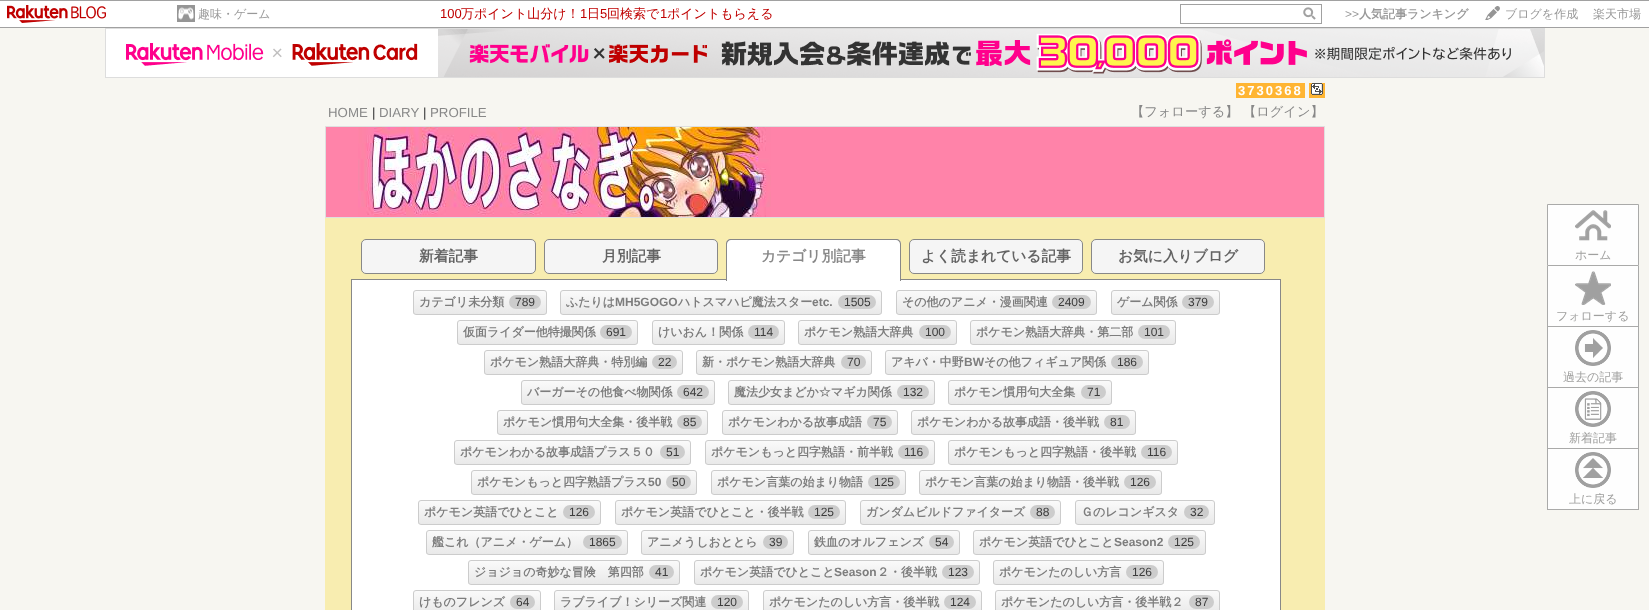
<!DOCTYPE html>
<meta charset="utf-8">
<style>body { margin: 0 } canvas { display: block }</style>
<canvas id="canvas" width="1649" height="610"></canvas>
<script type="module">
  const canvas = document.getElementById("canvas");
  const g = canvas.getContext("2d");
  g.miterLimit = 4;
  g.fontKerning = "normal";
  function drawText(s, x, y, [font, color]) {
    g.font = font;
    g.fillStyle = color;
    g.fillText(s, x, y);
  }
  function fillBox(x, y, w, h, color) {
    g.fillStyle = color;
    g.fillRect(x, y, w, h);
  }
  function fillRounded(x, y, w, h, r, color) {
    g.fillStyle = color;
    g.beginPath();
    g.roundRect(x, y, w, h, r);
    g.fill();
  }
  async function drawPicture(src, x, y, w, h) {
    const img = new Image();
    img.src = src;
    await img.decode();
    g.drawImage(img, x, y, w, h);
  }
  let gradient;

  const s1 = ["500 12px WenQuanYi Zen Hei", "#999999"];
  const s2 = ["13px Liberation Sans", "#BF0000"];
  const s3 = ["500 13px WenQuanYi Zen Hei", "#BF0000"];
  const s4 = ["12px Liberation Sans", "#999999"];
  const s5 = ["bold 12px WenQuanYi Zen Hei", "#999999"];
  const s6 = ["bold 13px Liberation Sans", "#FFFFFF"];
  const s7 = ["13.25px Liberation Sans", "#888888"];
  const s8 = ["13.25px Liberation Sans", "#333333"];
  const s9 = ["500 13.25px WenQuanYi Zen Hei", "#888888"];
  const s10 = ["bold 14.75px WenQuanYi Zen Hei", "#636363"];
  const s11 = ["bold 14.75px WenQuanYi Zen Hei", "#888888"];
  const s12 = ["bold 12px WenQuanYi Zen Hei", "#7D7D7D"];
  const s13 = ["12px Liberation Sans", "#3C3C3C"];
  const s14 = ["bold 12px Liberation Sans", "#7D7D7D"];
  const s15 = ["500 12px WenQuanYi Zen Hei", "#A0A09F"];

  fillBox(0, 0, 1649, 610, "#F7F6F1");
  fillBox(0, 1, 1649, 26, "#FFFFFF");
  fillBox(0, 0, 1649, 1, "#A1A1A1");
  fillBox(0, 27, 1649, 1, "#A1A1A1");
  await drawPicture("pic1.png", 7, 5, 99, 18);
  await drawPicture("pic2.png", 177, 5, 18, 17);
  drawText("趣味・ゲーム", 198, 18, s1);
  drawText("100", 440, 18, s2);
  drawText("万ポイント山分け！", 461, 18, s3);
  drawText("1", 580, 18, s2);
  drawText("日", 587, 18, s3);
  drawText("5", 600, 18, s2);
  drawText("回検索で", 607, 18, s3);
  drawText("1", 660, 18, s2);
  drawText("ポイントもらえる", 667, 18, s3);
  g.strokeStyle = "#A1A1A1";
  g.strokeRect(1180.5, 4.5, 141, 19);
  await drawPicture("pic3.png", 1303, 7, 13, 13);
  drawText(">>", 1345, 18, s4);
  drawText("人気記事ランキング", 1359, 18, s5);
  await drawPicture("pic4.png", 1485, 6, 15, 14);
  drawText("ブログを作成", 1505, 18, s1);
  drawText("楽天市場", 1593, 18, s1);
  await drawPicture("pic5.png", 105, 28, 1440, 50);
  fillBox(1309, 83, 16, 15, "#FFB533");
  fillBox(1236, 83, 69, 15, "#FFB533");
  g.letterSpacing = "2px";
  drawText("3730368", 1238, 95, s6);
  await drawPicture("pic6.png", 1311, 83, 12, 12);
  g.letterSpacing = "0px";
  drawText("HOME", 328, 117, s7);
  drawText("|", 372, 117, s8);
  drawText("DIARY", 379, 117, s7);
  drawText("|", 423, 117, s8);
  drawText("PROFILE", 430, 117, s7);
  drawText("【フォローする】", 1131, 116, s9);
  drawText("【ログイン】", 1243, 116, s9);
  g.fillStyle = "#FF83A9";
  g.beginPath();
  g.rect(325.5, 126.5, 999, 91);
  g.fill();
  g.strokeStyle = "#DFDFDF";
  g.stroke();
  await drawPicture("pic7.png", 358, 127, 413, 90);
  fillBox(325, 218, 1000, 392, "#F8EDB0");
  fillBox(351, 279, 930, 1, "#888888");
  g.fillStyle = "#F5F5F5";
  g.beginPath();
  g.roundRect(361.5, 239.5, 174, 34, 4.5);
  g.fill();
  g.strokeStyle = "#888888";
  g.stroke();
  drawText("新着記事", 419, 261, s10);
  g.fillStyle = "#F5F5F5";
  g.beginPath();
  g.roundRect(544.5, 239.5, 173, 34, 4.5);
  g.fill();
  g.stroke();
  drawText("月別記事", 602, 261, s10);
  fillBox(352, 280, 928, 330, "#FFFFFF");
  g.fillStyle = "#888888";
  g.beginPath();
  g.moveTo(351, 280);
  g.lineTo(1281, 280);
  g.lineTo(1281, 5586);
  g.bezierCurveTo(1281, 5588, 1279, 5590, 1277, 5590);
  g.lineTo(355, 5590);
  g.bezierCurveTo(353, 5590, 351, 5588, 351, 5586);
  g.closePath();
  g.moveTo(352, 280);
  g.lineTo(1280, 280);
  g.lineTo(1280, 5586);
  g.bezierCurveTo(1280, 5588, 1279, 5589, 1277, 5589);
  g.lineTo(355, 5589);
  g.bezierCurveTo(353, 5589, 352, 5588, 352, 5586);
  g.closePath();
  g.fill("evenodd");
  g.fillStyle = "#FFFFFF";
  g.beginPath();
  g.roundRect(726, 239, 175, 42, [5, 5, 0, 0]);
  g.fill();
  g.fillStyle = "#888888";
  g.beginPath();
  g.moveTo(731, 239);
  g.lineTo(896, 239);
  g.bezierCurveTo(899, 239, 901, 241, 901, 244);
  g.lineTo(901, 281);
  g.lineTo(726, 281);
  g.lineTo(726, 244);
  g.bezierCurveTo(726, 241, 728, 239, 731, 239);
  g.closePath();
  g.moveTo(731, 240);
  g.lineTo(896, 240);
  g.bezierCurveTo(898, 240, 900, 242, 900, 244);
  g.lineTo(900, 281);
  g.lineTo(727, 281);
  g.lineTo(727, 244);
  g.bezierCurveTo(727, 242, 729, 240, 731, 240);
  g.closePath();
  g.fill("evenodd");
  drawText("カテゴリ別記事", 761, 261, s11);
  g.fillStyle = "#F5F5F5";
  g.beginPath();
  g.roundRect(909.5, 239.5, 173, 34, 4.5);
  g.fill();
  g.stroke();
  drawText("よく読まれている記事", 921, 261, s10);
  g.fillStyle = "#F5F5F5";
  g.beginPath();
  g.roundRect(1091.5, 239.5, 173, 34, 4.5);
  g.fill();
  g.stroke();
  drawText("お気に入りブログ", 1118, 261, s10);
  g.save();
  g.beginPath();
  g.roundRect(413, 290, 134, 25, 3);
  g.clip();
  gradient = g.createLinearGradient(480, 291, 480, 314);
  gradient.addColorStop(0, "#FAFAFA");
  gradient.addColorStop(1, "#E9E9E9");
  g.fillStyle = gradient;
  g.fillRect(413, 291, 134, 23);
  g.restore();
  g.beginPath();
  g.roundRect(413.5, 290.5, 133, 24, 2.5);
  g.strokeStyle = "#CCCCCC";
  g.stroke();
  drawText("カテゴリ未分類", 419, 306, s12);
  fillRounded(509, 295, 32, 14, 7, "#CCCCCC");
  drawText("789", 515, 306, s13);
  g.save();
  g.beginPath();
  g.roundRect(560, 290, 322, 25, 3);
  g.clip();
  gradient = g.createLinearGradient(721, 291, 721, 314);
  gradient.addColorStop(0, "#FAFAFA");
  gradient.addColorStop(1, "#E9E9E9");
  g.fillStyle = gradient;
  g.fillRect(560, 291, 322, 23);
  g.restore();
  g.beginPath();
  g.roundRect(560.5, 290.5, 321, 24, 2.5);
  g.stroke();
  drawText("ふたりは", 566, 306, s12);
  drawText("MH5GOGO", 615, 306, s14);
  drawText("ハトスマハピ魔法スター", 678, 306, s12);
  drawText("etc.", 812, 306, s14);
  fillRounded(838, 295, 38, 14, 7, "#CCCCCC");
  drawText("1505", 844, 306, s13);
  g.save();
  g.beginPath();
  g.roundRect(896, 290, 201, 25, 3);
  g.clip();
  gradient = g.createLinearGradient(997, 291, 997, 314);
  gradient.addColorStop(0, "#FAFAFA");
  gradient.addColorStop(1, "#E9E9E9");
  g.fillStyle = gradient;
  g.fillRect(896, 291, 201, 23);
  g.restore();
  g.beginPath();
  g.roundRect(896.5, 290.5, 200, 24, 2.5);
  g.stroke();
  drawText("その他のアニメ・漫画関連", 902, 306, s12);
  fillRounded(1052, 295, 39, 14, 7, "#CCCCCC");
  drawText("2409", 1058, 306, s13);
  g.save();
  g.beginPath();
  g.roundRect(1111, 290, 109, 25, 3);
  g.clip();
  gradient = g.createLinearGradient(1166, 291, 1166, 314);
  gradient.addColorStop(0, "#FAFAFA");
  gradient.addColorStop(1, "#E9E9E9");
  g.fillStyle = gradient;
  g.fillRect(1111, 291, 109, 23);
  g.restore();
  g.beginPath();
  g.roundRect(1111.5, 290.5, 108, 24, 2.5);
  g.stroke();
  drawText("ゲーム関係", 1117, 306, s12);
  fillRounded(1182, 295, 32, 14, 7, "#CCCCCC");
  drawText("379", 1188, 306, s13);
  g.save();
  g.beginPath();
  g.roundRect(457, 320, 181, 25, 3);
  g.clip();
  gradient = g.createLinearGradient(548, 321, 548, 344);
  gradient.addColorStop(0, "#FAFAFA");
  gradient.addColorStop(1, "#E9E9E9");
  g.fillStyle = gradient;
  g.fillRect(457, 321, 181, 23);
  g.restore();
  g.beginPath();
  g.roundRect(457.5, 320.5, 180, 24, 2.5);
  g.stroke();
  drawText("仮面ライダー他特撮関係", 463, 336, s12);
  fillRounded(600, 325, 32, 14, 7, "#CCCCCC");
  drawText("691", 606, 336, s13);
  g.save();
  g.beginPath();
  g.roundRect(652, 320, 133, 25, 3);
  g.clip();
  gradient = g.createLinearGradient(719, 321, 719, 344);
  gradient.addColorStop(0, "#FAFAFA");
  gradient.addColorStop(1, "#E9E9E9");
  g.fillStyle = gradient;
  g.fillRect(652, 321, 133, 23);
  g.restore();
  g.beginPath();
  g.roundRect(652.5, 320.5, 132, 24, 2.5);
  g.stroke();
  drawText("けいおん！関係", 658, 336, s12);
  fillRounded(748, 325, 31, 14, 7, "#CCCCCC");
  drawText("114", 754, 336, s13);
  g.save();
  g.beginPath();
  g.roundRect(798, 320, 159, 25, 3);
  g.clip();
  gradient = g.createLinearGradient(878, 321, 878, 344);
  gradient.addColorStop(0, "#FAFAFA");
  gradient.addColorStop(1, "#E9E9E9");
  g.fillStyle = gradient;
  g.fillRect(798, 321, 159, 23);
  g.restore();
  g.beginPath();
  g.roundRect(798.5, 320.5, 158, 24, 2.5);
  g.stroke();
  drawText("ポケモン熟語大辞典", 804, 336, s12);
  fillRounded(919, 325, 32, 14, 7, "#CCCCCC");
  drawText("100", 925, 336, s13);
  g.save();
  g.beginPath();
  g.roundRect(970, 320, 206, 25, 3);
  g.clip();
  gradient = g.createLinearGradient(1073, 321, 1073, 344);
  gradient.addColorStop(0, "#FAFAFA");
  gradient.addColorStop(1, "#E9E9E9");
  g.fillStyle = gradient;
  g.fillRect(970, 321, 206, 23);
  g.restore();
  g.beginPath();
  g.roundRect(970.5, 320.5, 205, 24, 2.5);
  g.stroke();
  drawText("ポケモン熟語大辞典・第二部", 976, 336, s12);
  fillRounded(1138, 325, 32, 14, 7, "#CCCCCC");
  drawText("101", 1144, 336, s13);
  g.save();
  g.beginPath();
  g.roundRect(484, 350, 199, 25, 3);
  g.clip();
  gradient = g.createLinearGradient(584, 351, 584, 374);
  gradient.addColorStop(0, "#FAFAFA");
  gradient.addColorStop(1, "#E9E9E9");
  g.fillStyle = gradient;
  g.fillRect(484, 351, 199, 23);
  g.restore();
  g.beginPath();
  g.roundRect(484.5, 350.5, 198, 24, 2.5);
  g.stroke();
  drawText("ポケモン熟語大辞典・特別編", 490, 366, s12);
  fillRounded(652, 355, 25, 14, 7, "#CCCCCC");
  drawText("22", 658, 366, s13);
  g.save();
  g.beginPath();
  g.roundRect(696, 350, 176, 25, 3);
  g.clip();
  gradient = g.createLinearGradient(784, 351, 784, 374);
  gradient.addColorStop(0, "#FAFAFA");
  gradient.addColorStop(1, "#E9E9E9");
  g.fillStyle = gradient;
  g.fillRect(696, 351, 176, 23);
  g.restore();
  g.beginPath();
  g.roundRect(696.5, 350.5, 175, 24, 2.5);
  g.stroke();
  drawText("新・ポケモン熟語大辞典", 702, 366, s12);
  fillRounded(841, 355, 25, 14, 7, "#CCCCCC");
  drawText("70", 847, 366, s13);
  g.save();
  g.beginPath();
  g.roundRect(885, 350, 264, 25, 3);
  g.clip();
  gradient = g.createLinearGradient(1017, 351, 1017, 374);
  gradient.addColorStop(0, "#FAFAFA");
  gradient.addColorStop(1, "#E9E9E9");
  g.fillStyle = gradient;
  g.fillRect(885, 351, 264, 23);
  g.restore();
  g.beginPath();
  g.roundRect(885.5, 350.5, 263, 24, 2.5);
  g.stroke();
  drawText("アキバ・中野", 891, 366, s12);
  drawText("BW", 964, 366, s14);
  drawText("その他フィギュア関係", 984, 366, s12);
  fillRounded(1111, 355, 32, 14, 7, "#CCCCCC");
  drawText("186", 1117, 366, s13);
  g.save();
  g.beginPath();
  g.roundRect(521, 380, 194, 25, 3);
  g.clip();
  gradient = g.createLinearGradient(618, 381, 618, 404);
  gradient.addColorStop(0, "#FAFAFA");
  gradient.addColorStop(1, "#E9E9E9");
  g.fillStyle = gradient;
  g.fillRect(521, 381, 194, 23);
  g.restore();
  g.beginPath();
  g.roundRect(521.5, 380.5, 193, 24, 2.5);
  g.stroke();
  drawText("バーガーその他食べ物関係", 527, 396, s12);
  fillRounded(677, 385, 32, 14, 7, "#CCCCCC");
  drawText("642", 683, 396, s13);
  g.save();
  g.beginPath();
  g.roundRect(728, 380, 207, 25, 3);
  g.clip();
  gradient = g.createLinearGradient(832, 381, 832, 404);
  gradient.addColorStop(0, "#FAFAFA");
  gradient.addColorStop(1, "#E9E9E9");
  g.fillStyle = gradient;
  g.fillRect(728, 381, 207, 23);
  g.restore();
  g.beginPath();
  g.roundRect(728.5, 380.5, 206, 24, 2.5);
  g.stroke();
  drawText("魔法少女まどか☆マギカ関係", 734, 396, s12);
  fillRounded(897, 385, 32, 14, 7, "#CCCCCC");
  drawText("132", 903, 396, s13);
  g.save();
  g.beginPath();
  g.roundRect(948, 380, 164, 25, 3);
  g.clip();
  gradient = g.createLinearGradient(1030, 381, 1030, 404);
  gradient.addColorStop(0, "#FAFAFA");
  gradient.addColorStop(1, "#E9E9E9");
  g.fillStyle = gradient;
  g.fillRect(948, 381, 164, 23);
  g.restore();
  g.beginPath();
  g.roundRect(948.5, 380.5, 163, 24, 2.5);
  g.stroke();
  drawText("ポケモン慣用句大全集", 954, 396, s12);
  fillRounded(1081, 385, 25, 14, 7, "#CCCCCC");
  drawText("71", 1087, 396, s13);
  g.save();
  g.beginPath();
  g.roundRect(497, 410, 211, 25, 3);
  g.clip();
  gradient = g.createLinearGradient(603, 411, 603, 434);
  gradient.addColorStop(0, "#FAFAFA");
  gradient.addColorStop(1, "#E9E9E9");
  g.fillStyle = gradient;
  g.fillRect(497, 411, 211, 23);
  g.restore();
  g.beginPath();
  g.roundRect(497.5, 410.5, 210, 24, 2.5);
  g.stroke();
  drawText("ポケモン慣用句大全集・後半戦", 503, 426, s12);
  fillRounded(677, 415, 25, 14, 7, "#CCCCCC");
  drawText("85", 683, 426, s13);
  g.save();
  g.beginPath();
  g.roundRect(722, 410, 176, 25, 3);
  g.clip();
  gradient = g.createLinearGradient(810, 411, 810, 434);
  gradient.addColorStop(0, "#FAFAFA");
  gradient.addColorStop(1, "#E9E9E9");
  g.fillStyle = gradient;
  g.fillRect(722, 411, 176, 23);
  g.restore();
  g.beginPath();
  g.roundRect(722.5, 410.5, 175, 24, 2.5);
  g.stroke();
  drawText("ポケモンわかる故事成語", 728, 426, s12);
  fillRounded(867, 415, 25, 14, 7, "#CCCCCC");
  drawText("75", 873, 426, s13);
  g.save();
  g.beginPath();
  g.roundRect(911, 410, 225, 25, 3);
  g.clip();
  gradient = g.createLinearGradient(1024, 411, 1024, 434);
  gradient.addColorStop(0, "#FAFAFA");
  gradient.addColorStop(1, "#E9E9E9");
  g.fillStyle = gradient;
  g.fillRect(911, 411, 225, 23);
  g.restore();
  g.beginPath();
  g.roundRect(911.5, 410.5, 224, 24, 2.5);
  g.stroke();
  drawText("ポケモンわかる故事成語・後半戦", 917, 426, s12);
  fillRounded(1104, 415, 26, 14, 7, "#CCCCCC");
  drawText("81", 1110, 426, s13);
  g.save();
  g.beginPath();
  g.roundRect(454, 440, 237, 25, 3);
  g.clip();
  gradient = g.createLinearGradient(573, 441, 573, 464);
  gradient.addColorStop(0, "#FAFAFA");
  gradient.addColorStop(1, "#E9E9E9");
  g.fillStyle = gradient;
  g.fillRect(454, 441, 237, 23);
  g.restore();
  g.beginPath();
  g.roundRect(454.5, 440.5, 236, 24, 2.5);
  g.stroke();
  drawText("ポケモンわかる故事成語プラス５０", 460, 456, s12);
  fillRounded(660, 445, 25, 14, 7, "#CCCCCC");
  drawText("51", 666, 456, s13);
  g.save();
  g.beginPath();
  g.roundRect(705, 440, 230, 25, 3);
  g.clip();
  gradient = g.createLinearGradient(820, 441, 820, 464);
  gradient.addColorStop(0, "#FAFAFA");
  gradient.addColorStop(1, "#E9E9E9");
  g.fillStyle = gradient;
  g.fillRect(705, 441, 230, 23);
  g.restore();
  g.beginPath();
  g.roundRect(705.5, 440.5, 229, 24, 2.5);
  g.stroke();
  drawText("ポケモンもっと四字熟語・前半戦", 711, 456, s12);
  fillRounded(898, 445, 31, 14, 7, "#CCCCCC");
  drawText("116", 904, 456, s13);
  g.save();
  g.beginPath();
  g.roundRect(948, 440, 230, 25, 3);
  g.clip();
  gradient = g.createLinearGradient(1063, 441, 1063, 464);
  gradient.addColorStop(0, "#FAFAFA");
  gradient.addColorStop(1, "#E9E9E9");
  g.fillStyle = gradient;
  g.fillRect(948, 441, 230, 23);
  g.restore();
  g.beginPath();
  g.roundRect(948.5, 440.5, 229, 24, 2.5);
  g.stroke();
  drawText("ポケモンもっと四字熟語・後半戦", 954, 456, s12);
  fillRounded(1141, 445, 31, 14, 7, "#CCCCCC");
  drawText("116", 1147, 456, s13);
  g.save();
  g.beginPath();
  g.roundRect(471, 470, 226, 25, 3);
  g.clip();
  gradient = g.createLinearGradient(584, 471, 584, 494);
  gradient.addColorStop(0, "#FAFAFA");
  gradient.addColorStop(1, "#E9E9E9");
  g.fillStyle = gradient;
  g.fillRect(471, 471, 226, 23);
  g.restore();
  g.beginPath();
  g.roundRect(471.5, 470.5, 225, 24, 2.5);
  g.stroke();
  drawText("ポケモンもっと四字熟語プラス", 477, 486, s12);
  drawText("50", 648, 486, s14);
  fillRounded(666, 475, 25, 14, 7, "#CCCCCC");
  drawText("50", 672, 486, s13);
  g.save();
  g.beginPath();
  g.roundRect(711, 470, 195, 25, 3);
  g.clip();
  gradient = g.createLinearGradient(809, 471, 809, 494);
  gradient.addColorStop(0, "#FAFAFA");
  gradient.addColorStop(1, "#E9E9E9");
  g.fillStyle = gradient;
  g.fillRect(711, 471, 195, 23);
  g.restore();
  g.beginPath();
  g.roundRect(711.5, 470.5, 194, 24, 2.5);
  g.stroke();
  drawText("ポケモン言葉の始まり物語", 717, 486, s12);
  fillRounded(868, 475, 32, 14, 7, "#CCCCCC");
  drawText("125", 874, 486, s13);
  g.save();
  g.beginPath();
  g.roundRect(919, 470, 243, 25, 3);
  g.clip();
  gradient = g.createLinearGradient(1041, 471, 1041, 494);
  gradient.addColorStop(0, "#FAFAFA");
  gradient.addColorStop(1, "#E9E9E9");
  g.fillStyle = gradient;
  g.fillRect(919, 471, 243, 23);
  g.restore();
  g.beginPath();
  g.roundRect(919.5, 470.5, 242, 24, 2.5);
  g.stroke();
  drawText("ポケモン言葉の始まり物語・後半戦", 925, 486, s12);
  fillRounded(1124, 475, 32, 14, 7, "#CCCCCC");
  drawText("126", 1130, 486, s13);
  g.save();
  g.beginPath();
  g.roundRect(418, 500, 183, 25, 3);
  g.clip();
  gradient = g.createLinearGradient(510, 501, 510, 524);
  gradient.addColorStop(0, "#FAFAFA");
  gradient.addColorStop(1, "#E9E9E9");
  g.fillStyle = gradient;
  g.fillRect(418, 501, 183, 23);
  g.restore();
  g.beginPath();
  g.roundRect(418.5, 500.5, 182, 24, 2.5);
  g.stroke();
  drawText("ポケモン英語でひとこと", 424, 516, s12);
  fillRounded(563, 505, 32, 14, 7, "#CCCCCC");
  drawText("126", 569, 516, s13);
  g.save();
  g.beginPath();
  g.roundRect(615, 500, 231, 25, 3);
  g.clip();
  gradient = g.createLinearGradient(731, 501, 731, 524);
  gradient.addColorStop(0, "#FAFAFA");
  gradient.addColorStop(1, "#E9E9E9");
  g.fillStyle = gradient;
  g.fillRect(615, 501, 231, 23);
  g.restore();
  g.beginPath();
  g.roundRect(615.5, 500.5, 230, 24, 2.5);
  g.stroke();
  drawText("ポケモン英語でひとこと・後半戦", 621, 516, s12);
  fillRounded(808, 505, 32, 14, 7, "#CCCCCC");
  drawText("125", 814, 516, s13);
  g.save();
  g.beginPath();
  g.roundRect(860, 500, 201, 25, 3);
  g.clip();
  gradient = g.createLinearGradient(961, 501, 961, 524);
  gradient.addColorStop(0, "#FAFAFA");
  gradient.addColorStop(1, "#E9E9E9");
  g.fillStyle = gradient;
  g.fillRect(860, 501, 201, 23);
  g.restore();
  g.beginPath();
  g.roundRect(860.5, 500.5, 200, 24, 2.5);
  g.stroke();
  drawText("ガンダムビルドファイターズ", 866, 516, s12);
  fillRounded(1030, 505, 25, 14, 7, "#CCCCCC");
  drawText("88", 1036, 516, s13);
  g.save();
  g.beginPath();
  g.roundRect(1075, 500, 140, 25, 3);
  g.clip();
  gradient = g.createLinearGradient(1145, 501, 1145, 524);
  gradient.addColorStop(0, "#FAFAFA");
  gradient.addColorStop(1, "#E9E9E9");
  g.fillStyle = gradient;
  g.fillRect(1075, 501, 140, 23);
  g.restore();
  g.beginPath();
  g.roundRect(1075.5, 500.5, 139, 24, 2.5);
  g.stroke();
  drawText("Ｇのレコンギスタ", 1081, 516, s12);
  fillRounded(1184, 505, 25, 14, 7, "#CCCCCC");
  drawText("32", 1190, 516, s13);
  g.save();
  g.beginPath();
  g.roundRect(426, 530, 202, 25, 3);
  g.clip();
  gradient = g.createLinearGradient(527, 531, 527, 554);
  gradient.addColorStop(0, "#FAFAFA");
  gradient.addColorStop(1, "#E9E9E9");
  g.fillStyle = gradient;
  g.fillRect(426, 531, 202, 23);
  g.restore();
  g.beginPath();
  g.roundRect(426.5, 530.5, 201, 24, 2.5);
  g.stroke();
  drawText("艦これ（アニメ・ゲーム）", 432, 546, s12);
  fillRounded(583, 535, 39, 14, 7, "#CCCCCC");
  drawText("1865", 589, 546, s13);
  g.save();
  g.beginPath();
  g.roundRect(641, 530, 153, 25, 3);
  g.clip();
  gradient = g.createLinearGradient(718, 531, 718, 554);
  gradient.addColorStop(0, "#FAFAFA");
  gradient.addColorStop(1, "#E9E9E9");
  g.fillStyle = gradient;
  g.fillRect(641, 531, 153, 23);
  g.restore();
  g.beginPath();
  g.roundRect(641.5, 530.5, 152, 24, 2.5);
  g.stroke();
  drawText("アニメうしおととら", 647, 546, s12);
  fillRounded(763, 535, 25, 14, 7, "#CCCCCC");
  drawText("39", 769, 546, s13);
  g.save();
  g.beginPath();
  g.roundRect(808, 530, 152, 25, 3);
  g.clip();
  gradient = g.createLinearGradient(884, 531, 884, 554);
  gradient.addColorStop(0, "#FAFAFA");
  gradient.addColorStop(1, "#E9E9E9");
  g.fillStyle = gradient;
  g.fillRect(808, 531, 152, 23);
  g.restore();
  g.beginPath();
  g.roundRect(808.5, 530.5, 151, 24, 2.5);
  g.stroke();
  drawText("鉄血のオルフェンズ", 814, 546, s12);
  fillRounded(929, 535, 25, 14, 7, "#CCCCCC");
  drawText("54", 935, 546, s13);
  g.save();
  g.beginPath();
  g.roundRect(973, 530, 233, 25, 3);
  g.clip();
  gradient = g.createLinearGradient(1090, 531, 1090, 554);
  gradient.addColorStop(0, "#FAFAFA");
  gradient.addColorStop(1, "#E9E9E9");
  g.fillStyle = gradient;
  g.fillRect(973, 531, 233, 23);
  g.restore();
  g.beginPath();
  g.roundRect(973.5, 530.5, 232, 24, 2.5);
  g.stroke();
  drawText("ポケモン英語でひとこと", 979, 546, s12);
  drawText("Season2", 1114, 546, s14);
  fillRounded(1168, 535, 32, 14, 7, "#CCCCCC");
  drawText("125", 1174, 546, s13);
  g.save();
  g.beginPath();
  g.roundRect(468, 560, 212, 25, 3);
  g.clip();
  gradient = g.createLinearGradient(574, 561, 574, 584);
  gradient.addColorStop(0, "#FAFAFA");
  gradient.addColorStop(1, "#E9E9E9");
  g.fillStyle = gradient;
  g.fillRect(468, 561, 212, 23);
  g.restore();
  g.beginPath();
  g.roundRect(468.5, 560.5, 211, 24, 2.5);
  g.stroke();
  drawText("ジョジョの奇妙な冒険　第四部", 474, 576, s12);
  fillRounded(649, 565, 25, 14, 7, "#CCCCCC");
  drawText("41", 655, 576, s13);
  g.save();
  g.beginPath();
  g.roundRect(694, 560, 286, 25, 3);
  g.clip();
  gradient = g.createLinearGradient(837, 561, 837, 584);
  gradient.addColorStop(0, "#FAFAFA");
  gradient.addColorStop(1, "#E9E9E9");
  g.fillStyle = gradient;
  g.fillRect(694, 561, 286, 23);
  g.restore();
  g.beginPath();
  g.roundRect(694.5, 560.5, 285, 24, 2.5);
  g.stroke();
  drawText("ポケモン英語でひとこと", 700, 576, s12);
  drawText("Season", 834, 576, s14);
  drawText("２・後半戦", 877, 576, s12);
  fillRounded(942, 565, 32, 14, 7, "#CCCCCC");
  drawText("123", 948, 576, s13);
  g.save();
  g.beginPath();
  g.roundRect(993, 560, 171, 25, 3);
  g.clip();
  gradient = g.createLinearGradient(1079, 561, 1079, 584);
  gradient.addColorStop(0, "#FAFAFA");
  gradient.addColorStop(1, "#E9E9E9");
  g.fillStyle = gradient;
  g.fillRect(993, 561, 171, 23);
  g.restore();
  g.beginPath();
  g.roundRect(993.5, 560.5, 170, 24, 2.5);
  g.stroke();
  drawText("ポケモンたのしい方言", 999, 576, s12);
  fillRounded(1126, 565, 32, 14, 7, "#CCCCCC");
  drawText("126", 1132, 576, s13);
  g.save();
  g.beginPath();
  g.roundRect(413, 590, 128, 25, 3);
  g.clip();
  gradient = g.createLinearGradient(477, 591, 477, 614);
  gradient.addColorStop(0, "#FAFAFA");
  gradient.addColorStop(1, "#E9E9E9");
  g.fillStyle = gradient;
  g.fillRect(413, 591, 128, 19);
  g.restore();
  g.beginPath();
  g.roundRect(413.5, 590.5, 127, 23, 2.5);
  g.stroke();
  drawText("けものフレンズ", 419, 606, s12);
  fillRounded(510, 595, 25, 14, 7, "#CCCCCC");
  drawText("64", 516, 606, s13);
  g.save();
  g.beginPath();
  g.roundRect(554, 590, 195, 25, 3);
  g.clip();
  gradient = g.createLinearGradient(652, 591, 652, 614);
  gradient.addColorStop(0, "#FAFAFA");
  gradient.addColorStop(1, "#E9E9E9");
  g.fillStyle = gradient;
  g.fillRect(554, 591, 195, 19);
  g.restore();
  g.beginPath();
  g.roundRect(554.5, 590.5, 194, 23, 2.5);
  g.stroke();
  drawText("ラブライブ！シリーズ関連", 560, 606, s12);
  fillRounded(711, 595, 32, 14, 7, "#CCCCCC");
  drawText("120", 717, 606, s13);
  g.save();
  g.beginPath();
  g.roundRect(763, 590, 219, 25, 3);
  g.clip();
  gradient = g.createLinearGradient(873, 591, 873, 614);
  gradient.addColorStop(0, "#FAFAFA");
  gradient.addColorStop(1, "#E9E9E9");
  g.fillStyle = gradient;
  g.fillRect(763, 591, 219, 19);
  g.restore();
  g.beginPath();
  g.roundRect(763.5, 590.5, 218, 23, 2.5);
  g.stroke();
  drawText("ポケモンたのしい方言・後半戦", 769, 606, s12);
  fillRounded(944, 595, 32, 14, 7, "#CCCCCC");
  drawText("124", 950, 606, s13);
  g.save();
  g.beginPath();
  g.roundRect(995, 590, 225, 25, 3);
  g.clip();
  gradient = g.createLinearGradient(1108, 591, 1108, 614);
  gradient.addColorStop(0, "#FAFAFA");
  gradient.addColorStop(1, "#E9E9E9");
  g.fillStyle = gradient;
  g.fillRect(995, 591, 225, 19);
  g.restore();
  g.beginPath();
  g.roundRect(995.5, 590.5, 224, 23, 2.5);
  g.stroke();
  drawText("ポケモンたのしい方言・後半戦２", 1001, 606, s12);
  fillRounded(1189, 595, 25, 14, 7, "#CCCCCC");
  drawText("87", 1195, 606, s13);
  g.fillStyle = "#FEFEFE";
  g.beginPath();
  g.rect(1547.5, 204.5, 91, 61);
  g.fill();
  g.strokeStyle = "#AAAAA9";
  g.stroke();
  await drawPicture("pic8.png", 1575, 210, 36, 31);
  drawText("ホーム", 1575, 259, s15);
  fillBox(1548, 266, 90, 60, "#FEFEFE");
  fillBox(1638, 266, 1, 244, "#AAAAA9");
  fillBox(1547, 326, 92, 1, "#AAAAA9");
  fillBox(1547, 266, 1, 61, "#AAAAA9");
  await drawPicture("pic9.png", 1575, 271, 36, 34);
  drawText("フォローする", 1556, 320, s15);
  fillBox(1548, 327, 90, 60, "#FEFEFE");
  fillBox(1547, 387, 92, 1, "#AAAAA9");
  fillBox(1547, 327, 1, 61, "#AAAAA9");
  await drawPicture("pic10.png", 1575, 330, 36, 36);
  drawText("過去の記事", 1563, 381, s15);
  fillBox(1548, 388, 90, 60, "#FEFEFE");
  fillBox(1547, 448, 92, 1, "#AAAAA9");
  fillBox(1547, 388, 1, 61, "#AAAAA9");
  await drawPicture("pic11.png", 1575, 391, 36, 36);
  drawText("新着記事", 1569, 442, s15);
  fillBox(1548, 449, 90, 60, "#FEFEFE");
  fillBox(1547, 509, 92, 1, "#AAAAA9");
  fillBox(1547, 449, 1, 61, "#AAAAA9");
  await drawPicture("pic12.png", 1575, 452, 36, 36);
  drawText("上に戻る", 1569, 503, s15);
</script>
